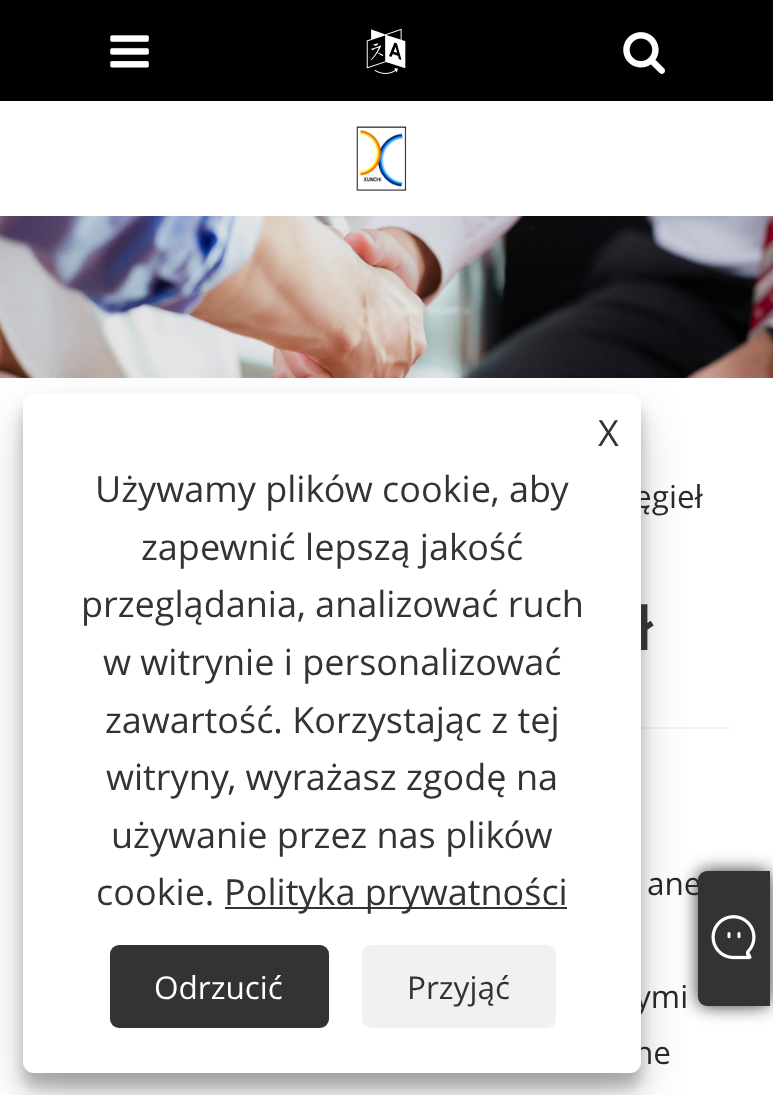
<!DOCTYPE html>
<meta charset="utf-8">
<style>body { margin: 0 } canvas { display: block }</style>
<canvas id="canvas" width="773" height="1095"></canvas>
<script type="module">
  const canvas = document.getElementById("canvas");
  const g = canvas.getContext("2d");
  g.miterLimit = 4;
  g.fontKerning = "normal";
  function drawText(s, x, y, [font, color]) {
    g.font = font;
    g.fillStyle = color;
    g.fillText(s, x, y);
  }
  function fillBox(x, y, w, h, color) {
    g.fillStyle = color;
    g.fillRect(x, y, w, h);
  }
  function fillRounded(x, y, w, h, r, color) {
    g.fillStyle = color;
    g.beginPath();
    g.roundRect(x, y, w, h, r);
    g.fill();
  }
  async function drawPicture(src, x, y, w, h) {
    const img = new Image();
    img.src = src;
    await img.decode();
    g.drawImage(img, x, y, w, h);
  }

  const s1 = ["31.5px Open Sans", "#282828"];
  const s2 = ["bold 58px Open Sans", "#333333"];
  const s3 = ["36px Open Sans", "#333333"];
  const s4 = ["31.5px Open Sans", "#FFFFFF"];
  const s5 = ["31.5px Open Sans", "#333333"];

  fillBox(0, 0, 773, 1095, "#FFFFFF");
  fillBox(0, 0, 773, 101, "#000000");
  await drawPicture("pic1.png", 110, 35, 39, 33);
  await drawPicture("pic2.png", 366, 29, 40, 45);
  await drawPicture("pic3.png", 623, 32, 42, 42);
  fillBox(641, 727, 88, 2, "#F4F4F4");
  g.fillStyle = "rgba(0, 0, 0, 0.23)";
  g.filter = "blur(7px)";
  g.beginPath();
  g.roundRect(23, 407, 618, 680, 11);
  g.fill();
  g.filter = "none";
  await drawPicture("pic5.png", 0, 216, 773, 162);
  drawText("ane", 647, 895, s1);
  g.fillStyle = "#333333";
  g.filter = "blur(9px)";
  g.beginPath();
  g.roundRect(698, 871, 72, 135, 9);
  g.fill();
  g.filter = "none";
  g.beginPath();
  g.roundRect(698, 871, 72, 135, [9, 0, 0, 9]);
  g.fill();
  g.fillStyle = "rgba(0, 0, 0, 0.19)";
  g.filter = "blur(22.5px)";
  g.beginPath();
  g.roundRect(23, 416, 618, 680, 11);
  g.fill();
  g.filter = "none";
  drawText("ęgieł", 634, 508, s1);
  drawText("ł", 636, 650, s2);
  drawText("ymi", 635, 1008, s1);
  drawText("ne", 634, 1064, s1);
  fillRounded(23, 394, 618, 679, 11, "#FFFFFF");
  drawText("X", 598, 446, s3);
  drawText("Używamy plików cookie, aby", 95, 502, s3);
  drawText("zapewnić lepszą jakość", 141, 560, s3);
  drawText("przeglądania, analizować ruch", 81, 617, s3);
  drawText("w witrynie i personalizować", 103, 675, s3);
  drawText("zawartość. Korzystając z tej", 105, 733, s3);
  drawText("witryny, wyrażasz zgodę na", 106, 790, s3);
  drawText("używanie przez nas plików", 111, 848, s3);
  drawText("cookie.", 96, 905, s3);
  fillBox(225, 907, 342, 2, "#333333");
  drawText("Polityka prywatności", 224, 905, s3);
  fillRounded(110, 945, 219, 83, 9, "#333333");
  drawText("Odrzucić", 154, 999, s4);
  fillRounded(362, 945, 194, 83, 9, "#F1F1F1");
  drawText("Przyjąć", 407, 999, s5);
  await drawPicture("pic4.png", 356, 126, 51, 65);
  await drawPicture("pic6.png", 711, 915, 45, 45);
</script>
